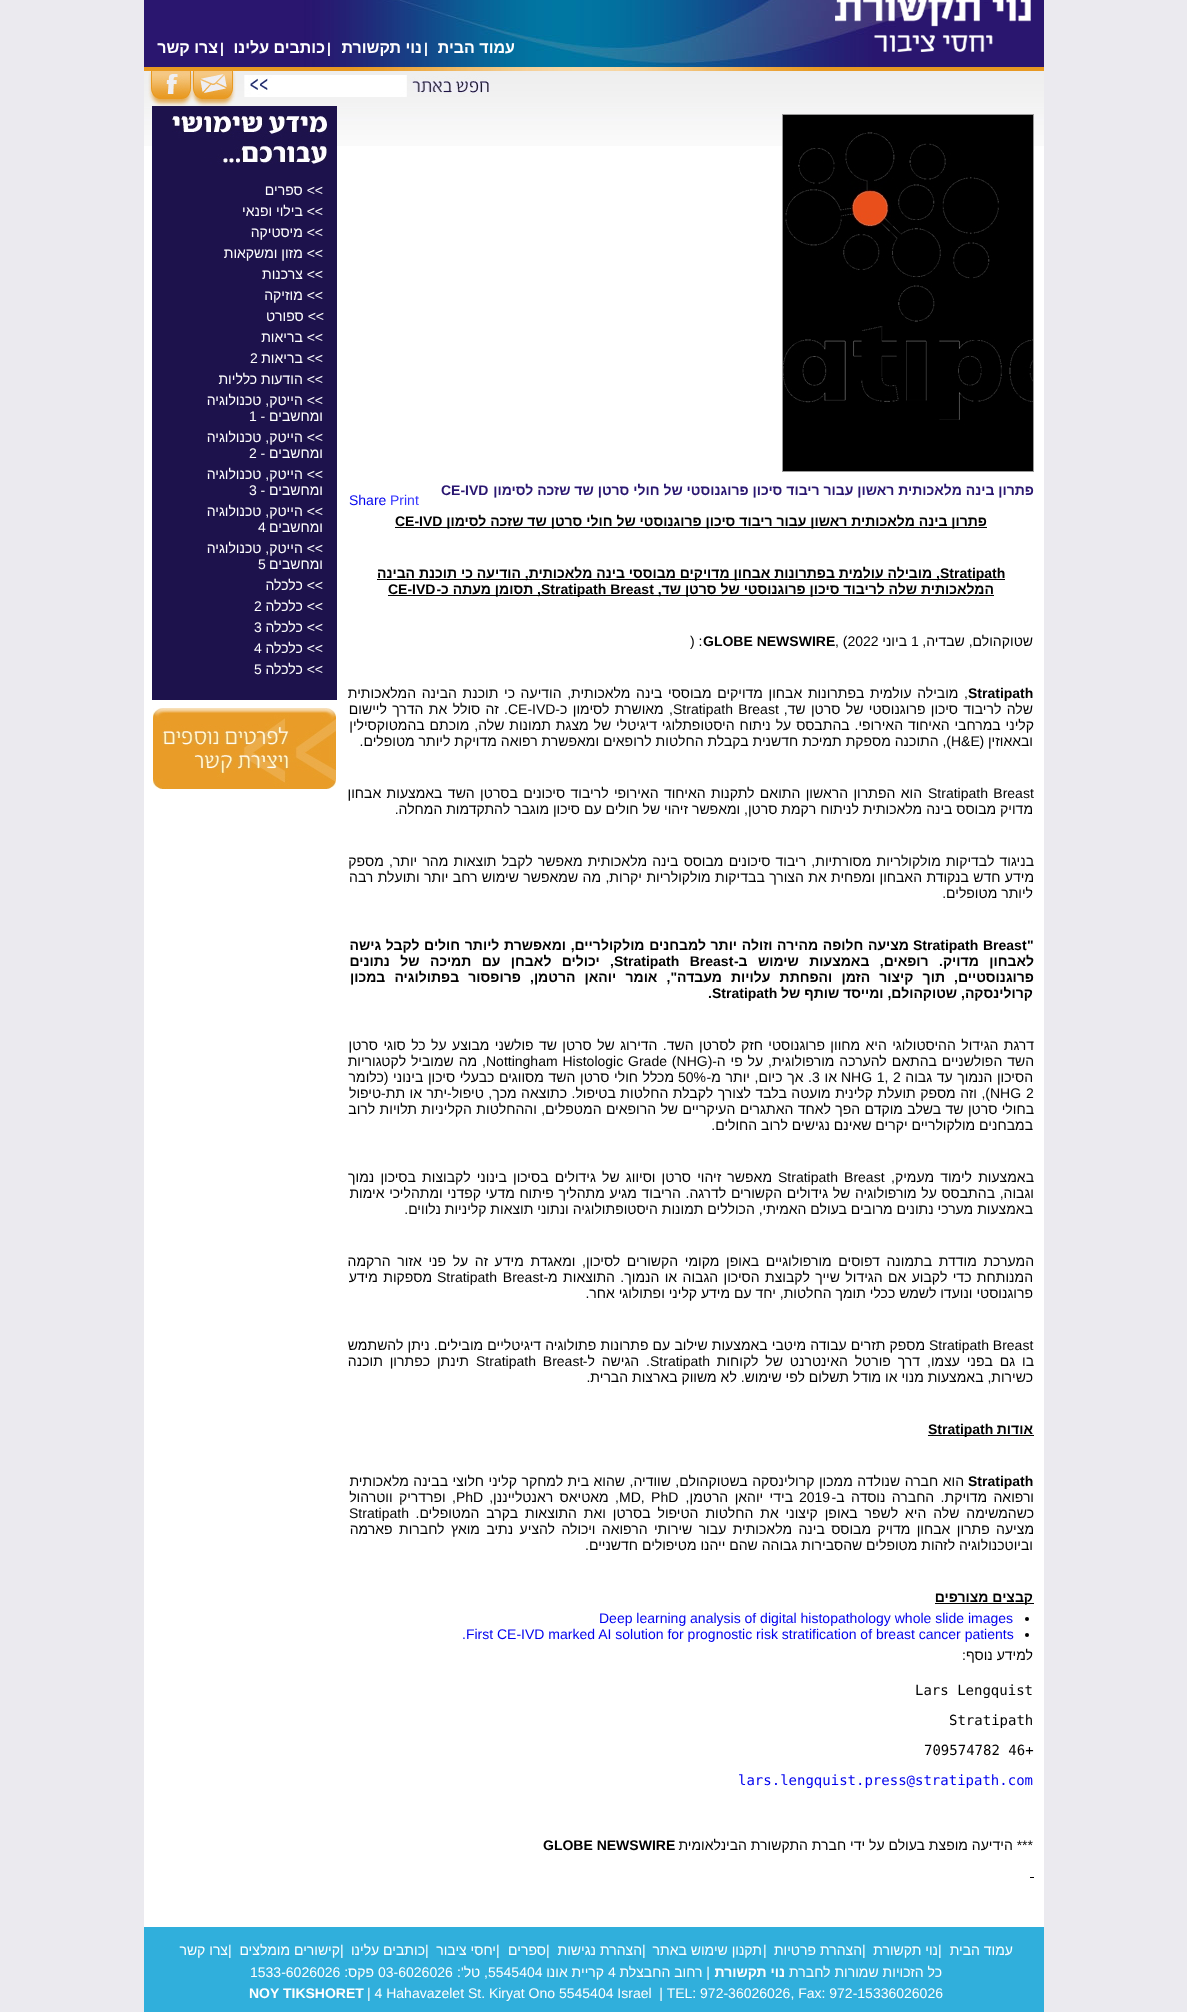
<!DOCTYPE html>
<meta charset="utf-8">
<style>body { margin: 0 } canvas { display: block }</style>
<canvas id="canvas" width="1187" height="2012"></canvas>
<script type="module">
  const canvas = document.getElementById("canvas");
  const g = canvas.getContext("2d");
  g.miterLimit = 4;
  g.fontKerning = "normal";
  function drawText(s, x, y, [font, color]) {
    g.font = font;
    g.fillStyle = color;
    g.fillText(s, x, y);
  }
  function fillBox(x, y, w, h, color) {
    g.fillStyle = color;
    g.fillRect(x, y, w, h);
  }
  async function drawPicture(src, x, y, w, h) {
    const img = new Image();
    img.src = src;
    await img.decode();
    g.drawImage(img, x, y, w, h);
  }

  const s1 = ["bold 16px Liberation Sans", "#FFFFFF"];
  const s2 = ["bold 14px Liberation Sans", "#FFFFFF"];
  const s3 = ["14px Liberation Sans", "#FFFFFF"];
  const s4 = ["bold 14px Liberation Sans", "#291670"];
  const s5 = ["14px Liberation Sans", "#3333FF"];
  const s6 = ["14px Liberation Sans", "#0000EE"];
  const s7 = ["bold 14px Liberation Sans", "#000000"];
  const s8 = ["14px Liberation Sans", "#000000"];
  const s9 = ["14px DejaVu Sans Mono", "#000000"];
  const s10 = ["14px DejaVu Sans Mono", "#0000EE"];

  fillBox(0, 0, 1187, 2012, "#EBEAEF");
  await drawPicture("pic1.png", 144, 0, 900, 71);
  await drawPicture("pic2.png", 835, 0, 196, 52);
  g.direction = "rtl";
  drawText("עמוד הבית", 515, 53, s1);
  g.direction = "ltr";
  drawText("|", 424, 53, s2);
  g.direction = "rtl";
  drawText("נוי תקשורת", 422, 53, s1);
  g.direction = "ltr";
  drawText("|", 327, 53, s2);
  g.direction = "rtl";
  drawText("כותבים עלינו", 325, 53, s1);
  g.direction = "ltr";
  drawText("|", 220, 53, s2);
  g.direction = "rtl";
  drawText("צרו קשר", 218, 53, s1);
  fillBox(144, 146, 900, 1781, "#FFFFFF");
  await drawPicture("pic3.png", 144, 71, 900, 75);
  await drawPicture("pic4.png", 244, 75, 246, 22);
  fillBox(401, 81, 2, 1, "#FFFFFF");
  await drawPicture("pic5.png", 250, 78, 18, 12);
  await drawPicture("pic6.png", 192, 71, 44, 35);
  await drawPicture("pic7.png", 148, 71, 44, 36);
  fillBox(152, 106, 185, 594, "#1D124C");
  await drawPicture("pic8.png", 172, 116, 155, 48);
  drawText(">> ספרים", 323, 195, s3);
  drawText(">> בילוי ופנאי", 323, 216, s3);
  drawText(">> מיסטיקה", 323, 237, s3);
  drawText(">> מזון ומשקאות", 323, 258, s3);
  drawText(">> צרכנות", 323, 279, s3);
  drawText(">> מוזיקה", 323, 300, s3);
  drawText(">> ספורט", 324, 321, s3);
  drawText(">> בריאות", 323, 342, s3);
  drawText(">> בריאות", 323, 363, s3);
  g.direction = "ltr";
  drawText("2", 250, 363, s3);
  g.direction = "rtl";
  drawText(">> הודעות כלליות", 323, 384, s3);
  drawText(">> הייטק, טכנולוגיה", 323, 405, s3);
  drawText("ומחשבים -", 323, 421, s3);
  g.direction = "ltr";
  drawText("1", 249, 421, s3);
  g.direction = "rtl";
  drawText(">> הייטק, טכנולוגיה", 323, 442, s3);
  drawText("ומחשבים -", 323, 458, s3);
  g.direction = "ltr";
  drawText("2", 249, 458, s3);
  g.direction = "rtl";
  drawText(">> הייטק, טכנולוגיה", 323, 479, s3);
  drawText("ומחשבים -", 323, 495, s3);
  g.direction = "ltr";
  drawText("3", 249, 495, s3);
  g.direction = "rtl";
  drawText(">> הייטק, טכנולוגיה", 323, 516, s3);
  drawText("ומחשבים", 323, 532, s3);
  g.direction = "ltr";
  drawText("4", 258, 532, s3);
  g.direction = "rtl";
  drawText(">> הייטק, טכנולוגיה", 323, 553, s3);
  drawText("ומחשבים", 323, 569, s3);
  g.direction = "ltr";
  drawText("5", 258, 569, s3);
  g.direction = "rtl";
  drawText(">> כלכלה", 323, 590, s3);
  drawText(">> כלכלה", 323, 611, s3);
  g.direction = "ltr";
  drawText("2", 254, 611, s3);
  g.direction = "rtl";
  drawText(">> כלכלה", 323, 632, s3);
  g.direction = "ltr";
  drawText("3", 254, 632, s3);
  g.direction = "rtl";
  drawText(">> כלכלה", 323, 653, s3);
  g.direction = "ltr";
  drawText("4", 254, 653, s3);
  g.direction = "rtl";
  drawText(">> כלכלה", 323, 674, s3);
  g.direction = "ltr";
  drawText("5", 254, 674, s3);
  await drawPicture("pic9.png", 153, 708, 183, 81);
  g.strokeStyle = "#999999";
  g.strokeRect(782.5, 114.5, 251, 357);
  await drawPicture("pic10.png", 783, 115, 250, 356);
  g.direction = "rtl";
  drawText("פתרון בינה מלאכותית ראשון עבור ריבוד סיכון פרוגנוסטי של חולי סרטן שד שזכה לסימון", 1034, 495, s4);
  g.direction = "ltr";
  drawText("CE-IVD", 441, 495, s4);
  drawText("Print", 390, 505, s5);
  drawText("Share", 349, 505, s6);
  fillBox(395, 527, 592, 1, "#000000");
  g.direction = "rtl";
  drawText("פתרון בינה מלאכותית ראשון עבור ריבוד סיכון פרוגנוסטי של חולי סרטן שד שזכה לסימון", 987, 526, s7);
  g.direction = "ltr";
  drawText("CE-IVD", 395, 526, s7);
  fillBox(377, 579, 628, 1, "#000000");
  drawText("Stratipath", 940, 578, s7);
  g.direction = "rtl";
  drawText(", מובילה עולמית בפתרונות אבחון מדויקים מבוססי בינה מלאכותית, הודיעה כי תוכנת הבינה", 940, 578, s7);
  fillBox(541, 595, 453, 1, "#000000");
  drawText("המלאכותית שלה לריבוד סיכון פרוגנוסטי של סרטן שד,", 994, 594, s7);
  g.direction = "ltr";
  drawText("Stratipath Breast", 541, 594, s7);
  fillBox(388, 595, 153, 1, "#000000");
  g.direction = "rtl";
  drawText(", תסומן מעתה כ-", 541, 594, s7);
  g.direction = "ltr";
  drawText("CE-IVD", 388, 594, s7);
  g.direction = "rtl";
  drawText("שטוקהולם, שבדיה,", 1033, 646, s8);
  g.direction = "ltr";
  drawText("1", 911, 646, s8);
  g.direction = "rtl";
  drawText("ביוני", 907, 646, s8);
  g.direction = "ltr";
  drawText(", (2022", 835, 646, s8);
  drawText("GLOBE NEWSWIRE", 703, 646, s7);
  drawText(") :", 690, 646, s8);
  drawText("Stratipath", 968, 698, s7);
  g.wordSpacing = "1.75px";
  g.direction = "rtl";
  drawText(", מובילה עולמית בפתרונות אבחון מדויקים מבוססי בינה מלאכותית, הודיעה כי תוכנת הבינה המלאכותית", 968, 698, s8);
  g.wordSpacing = "1.5px";
  drawText("שלה לריבוד סיכון פרוגנוסטי של סרטן שד,", 1033, 714, s8);
  g.direction = "ltr";
  drawText("Stratipath Breast", 673, 714, s8);
  g.direction = "rtl";
  drawText(", מאושרת לסימון כ-", 673, 714, s8);
  g.wordSpacing = "0px";
  g.direction = "ltr";
  drawText("CE-IVD", 508, 714, s8);
  g.wordSpacing = "1.5px";
  g.direction = "rtl";
  drawText(". זה סולל את הדרך ליישום", 508, 714, s8);
  g.wordSpacing = "1px";
  drawText("קליני במרחבי האיחוד האירופי. בהתבסס על ניתוח היסטופתלוגי דיגיטלי של מצגת תמונות שלה, מוכתם בהמטוקסילין", 1034, 730, s8);
  g.wordSpacing = "0px";
  drawText("ובאאוזין (", 1033, 746, s8);
  g.direction = "ltr";
  drawText("H&E", 951, 746, s8);
  g.direction = "rtl";
  drawText("), התוכנה מספקת תמיכת חדשנית בקבלת החלטות לרופאים ומאפשרת רפואה מדויקת ליותר מטופלים.", 951, 746, s8);
  g.wordSpacing = "1.5px";
  g.direction = "ltr";
  drawText("Stratipath Breast", 928, 798, s8);
  g.direction = "rtl";
  drawText("הוא הפתרון הראשון התואם לתקנות האיחוד האירופי לריבוד סיכונים בסרטן השד באמצעות אבחון", 922, 798, s8);
  g.wordSpacing = "0px";
  drawText("מדויק מבוסס בינה מלאכותית לניתוח רקמת סרטן, ומאפשר זיהוי של חולים עם סיכון מוגבר להתקדמות המחלה.", 1033, 814, s8);
  g.wordSpacing = "1.25px";
  drawText("בניגוד לבדיקות מולקולריות מסורתיות, ריבוד סיכונים מבוסס בינה מלאכותית מאפשר לקבל תוצאות מהר יותר, מספק", 1034, 866, s8);
  g.wordSpacing = "0.5px";
  drawText("מידע חדש בנקודת האבחון ומפחית את הצורך בבדיקות מולקולריות יקרות, מה שמאפשר שימוש רחב יותר ותועלת רבה", 1034, 882, s8);
  g.wordSpacing = "0px";
  drawText("ליותר מטופלים.", 1033, 898, s8);
  g.direction = "ltr";
  drawText("\"", 1027, 950, s7);
  g.wordSpacing = "0.75px";
  drawText("Stratipath Breast", 913, 950, s7);
  g.direction = "rtl";
  drawText("מציעה חלופה מהירה וזולה יותר למבחנים מולקולריים, ומאפשרת ליותר חולים לקבל גישה", 909, 950, s7);
  g.wordSpacing = "6.5px";
  drawText("לאבחון מדויק. רופאים, באמצעות שימוש ב-", 1034, 966, s7);
  g.direction = "ltr";
  drawText("Stratipath Breast", 614, 966, s7);
  g.direction = "rtl";
  drawText(", יכולים לאבחן עם תמיכה של נתונים", 614, 966, s7);
  g.wordSpacing = "5.25px";
  drawText("פרוגנוסטיים, תוך קיצור הזמן והפחתת עלויות מעבדה\", אומר יוהאן הרטמן, פרופסור בפתולוגיה במכון", 1034, 982, s7);
  g.wordSpacing = "0px";
  drawText("קרולינסקה, שטוקהולם, ומייסד שותף של", 1033, 998, s7);
  g.direction = "ltr";
  drawText("Stratipath", 712, 998, s7);
  drawText(".", 708, 998, s7);
  g.wordSpacing = "1.5px";
  g.direction = "rtl";
  drawText("דרגת הגידול ההיסטולוגי היא מחוון פרוגנוסטי חזק לסרטן השד. הדירוג של סרטן שד פולשני מבוצע על כל סוגי סרטן", 1034, 1050, s8);
  g.wordSpacing = "1px";
  drawText("השד הפולשניים בהתאם להערכה מורפולוגית, על פי ה-", 1034, 1066, s8);
  g.direction = "ltr";
  drawText("Nottingham Histologic Grade (NHG)", 486, 1066, s8);
  g.direction = "rtl";
  drawText(", מה שמוביל לקטגוריות", 486, 1066, s8);
  g.wordSpacing = "0.75px";
  drawText("הסיכון הנמוך עד גבוה", 1033, 1082, s8);
  g.direction = "ltr";
  drawText("NHG 1, 2", 841, 1082, s8);
  g.wordSpacing = "0px";
  g.direction = "rtl";
  drawText("או", 837, 1082, s8);
  g.direction = "ltr";
  drawText("3", 812, 1082, s8);
  g.wordSpacing = "0.75px";
  g.direction = "rtl";
  drawText(". אך כיום, יותר מ-", 812, 1082, s8);
  g.wordSpacing = "0px";
  g.direction = "ltr";
  drawText("50%", 678, 1082, s8);
  g.wordSpacing = "0.75px";
  g.direction = "rtl";
  drawText("מכלל חולי סרטן השד מסווגים כבעלי סיכון בינוני (כלומר", 674, 1082, s8);
  g.wordSpacing = "1px";
  g.direction = "ltr";
  drawText("NHG 2", 990, 1098, s8);
  g.wordSpacing = "0.6px";
  g.direction = "rtl";
  drawText("), וזה מספק תועלת קלינית מועטה בלבד לצורך לקבלת החלטות בטיפול. כתוצאה מכך, טיפול-יתר או תת-טיפול", 990, 1098, s8);
  g.wordSpacing = "0.5px";
  drawText("בחולי סרטן שד בשלב מוקדם הפך לאחד האתגרים העיקריים של הרופאים המטפלים, וההחלטות הקליניות תלויות לרוב", 1034, 1114, s8);
  g.wordSpacing = "0px";
  drawText("במבחנים מולקולריים יקרים שאינם נגישים לרוב החולים.", 1033, 1130, s8);
  g.wordSpacing = "2.25px";
  drawText("באמצעות לימוד מעמיק,", 1034, 1182, s8);
  g.direction = "ltr";
  drawText("Stratipath Breast", 778, 1182, s8);
  g.direction = "rtl";
  drawText("מאפשר זיהוי סרטן וסיווג של גידולים בסיכון בינוני לקבוצות בסיכון נמוך", 772, 1182, s8);
  g.wordSpacing = "0.75px";
  drawText("וגבוה, בהתבסס על מורפולוגיה של גידולים הקשורים לדרגה. הריבוד מגיע מתהליך פיתוח מדעי קפדני ומתהליכי אימות", 1034, 1198, s8);
  g.wordSpacing = "0px";
  drawText("באמצעות מערכי נתונים מרובים בעולם האמיתי, הכוללים תמונות היסטופתולוגיה ונתוני תוצאות קליניות נלווים.", 1033, 1214, s8);
  g.wordSpacing = "2.75px";
  drawText("המערכת מודדת בתמונה דפוסים מורפולוגיים באופן מקומי הקשורים לסיכון, ומאגדת מידע זה על פני אזור הרקמה", 1034, 1266, s8);
  g.wordSpacing = "2px";
  g.direction = "ltr";
  drawText("Stratipath Breast", 437, 1282, s8);
  g.wordSpacing = "1.5px";
  g.direction = "rtl";
  drawText("המנותחת כדי לקבוע אם הגידול שייך לקבוצת הסיכון הגבוה או הנמוך. התוצאות מ-", 1033, 1282, s8);
  drawText("מספקות מידע", 432, 1282, s8);
  g.wordSpacing = "0px";
  drawText("פרוגנוסטי ונועדו לשמש ככלי תומך החלטות, יחד עם מידע קליני ופתולוגי אחר.", 1033, 1298, s8);
  g.direction = "ltr";
  drawText("Stratipath Breast", 929, 1350, s8);
  g.wordSpacing = "0.25px";
  g.direction = "rtl";
  drawText("מספק תזרים עבודה מיטבי באמצעות שילוב עם פתרונות פתולוגיה דיגיטליים מובילים. ניתן להשתמש", 925, 1350, s8);
  g.wordSpacing = "3px";
  drawText("בו גם בפני עצמו, דרך פורטל האינטרנט של לקוחות", 1034, 1366, s8);
  g.wordSpacing = "0px";
  g.direction = "ltr";
  drawText("Stratipath", 650, 1366, s8);
  g.wordSpacing = "3px";
  drawText("Stratipath Breast", 476, 1366, s8);
  g.direction = "rtl";
  drawText(". הגישה ל-", 650, 1366, s8);
  drawText("תינתן כפתרון תוכנה", 469, 1366, s8);
  g.wordSpacing = "0px";
  drawText("כשירות, באמצעות מנוי או מודל תשלום לפי שימוש. לא משווק בארצות הברית.", 1033, 1382, s8);
  drawText("אודות", 1033, 1434, s7);
  fillBox(928, 1435, 106, 1, "#000000");
  g.direction = "ltr";
  drawText("Stratipath", 928, 1434, s7);
  drawText("Stratipath", 968, 1486, s7);
  g.wordSpacing = "0.6px";
  g.direction = "rtl";
  drawText("הוא חברה שנולדה ממכון קרולינסקה בשטוקהולם, שוודיה, שהוא בית למחקר קליני חלוצי בבינה מלאכותית", 964, 1486, s8);
  g.wordSpacing = "2.5px";
  drawText("ורפואה מדויקת. החברה נוסדה ב-", 1034, 1502, s8);
  g.wordSpacing = "0px";
  g.direction = "ltr";
  drawText("2019", 799, 1502, s8);
  g.wordSpacing = "2.5px";
  g.direction = "rtl";
  drawText("בידי יוהאן הרטמן,", 793, 1502, s8);
  g.direction = "ltr";
  drawText("MD, PhD", 619, 1502, s8);
  g.direction = "rtl";
  drawText(", מאטיאס ראנטלייננן,", 619, 1502, s8);
  g.wordSpacing = "0px";
  g.direction = "ltr";
  drawText("PhD", 456, 1502, s8);
  g.wordSpacing = "2.5px";
  g.direction = "rtl";
  drawText(", ופרדריק ווטרהול", 456, 1502, s8);
  g.wordSpacing = "3px";
  drawText("כשהמשימה שלה היא לשפר באופן קיצוני את החלטות הטיפול בסרטן ואת התוצאות בקרב המטופלים.", 1034, 1518, s8);
  g.wordSpacing = "0px";
  g.direction = "ltr";
  drawText("Stratipath", 349, 1518, s8);
  g.wordSpacing = "2.5px";
  g.direction = "rtl";
  drawText("מציעה פתרון אבחון מדויק מבוסס בינה מלאכותית עבור שירותי הרפואה ויכולה להציע נתיב מואץ לחברות פארמה", 1034, 1534, s8);
  g.wordSpacing = "0px";
  drawText("וביוטכנולוגיה לזהות מטופלים שהסבירות גבוהה שהם ייהנו מטיפולים חדשניים.", 1033, 1550, s8);
  fillBox(935, 1603, 99, 1, "#000000");
  drawText("קבצים מצורפים", 1033, 1602, s7);
  g.beginPath();
  g.arc(1027, 1619, 2, 0, Math.PI * 2);
  g.fill();
  g.direction = "ltr";
  drawText("Deep learning analysis of digital histopathology whole slide images", 599, 1623, s6);
  g.fillStyle = "#000000";
  g.beginPath();
  g.arc(1027, 1635, 2, 0, Math.PI * 2);
  g.fill();
  drawText(".First CE-IVD marked AI solution for prognostic risk stratification of breast cancer patients", 462, 1639, s6);
  g.direction = "rtl";
  drawText("למידע נוסף:", 1033, 1660, s8);
  g.direction = "ltr";
  drawText("Lars Lengquist", 915, 1695, s9);
  drawText("Stratipath", 949, 1725, s9);
  drawText("709574782 46+", 924, 1755, s9);
  drawText("lars.lengquist.press@stratipath.com", 738, 1785, s10);
  g.direction = "rtl";
  drawText("*** הידיעה מופצת בעולם על ידי חברת התקשורת הבינלאומית", 1033, 1850, s8);
  g.direction = "ltr";
  drawText("GLOBE NEWSWIRE", 543, 1850, s7);
  fillBox(1030, 1877, 4, 1, "#000000");
  fillBox(144, 1927, 900, 85, "#30AFDC");
  g.direction = "rtl";
  drawText("עמוד הבית", 1013, 1955, s3);
  g.direction = "ltr";
  drawText("|", 938, 1955, s3);
  g.direction = "rtl";
  drawText("נוי תקשורת", 938, 1955, s3);
  g.direction = "ltr";
  drawText("|", 862, 1955, s3);
  g.direction = "rtl";
  drawText("הצהרת פרטיות", 862, 1955, s3);
  g.direction = "ltr";
  drawText("|", 763, 1955, s3);
  g.direction = "rtl";
  drawText("תקנון שימוש באתר", 762, 1955, s3);
  g.direction = "ltr";
  drawText("|", 642, 1955, s3);
  g.direction = "rtl";
  drawText("הצהרת נגישות", 642, 1955, s3);
  g.direction = "ltr";
  drawText("|", 546, 1955, s3);
  g.direction = "rtl";
  drawText("ספרים", 546, 1955, s3);
  g.direction = "ltr";
  drawText("|", 496, 1955, s3);
  g.direction = "rtl";
  drawText("יחסי ציבור", 496, 1955, s3);
  g.direction = "ltr";
  drawText("|", 425, 1955, s3);
  g.direction = "rtl";
  drawText("כותבים עלינו", 425, 1955, s3);
  g.direction = "ltr";
  drawText("|", 340, 1955, s3);
  g.direction = "rtl";
  drawText("קישורים מומלצים", 340, 1955, s3);
  g.direction = "ltr";
  drawText("|", 228, 1955, s3);
  g.direction = "rtl";
  drawText("צרו קשר", 228, 1955, s3);
  drawText("כל הזכויות שמורות לחברת", 942, 1977, s3);
  drawText("נוי תקשורת", 785, 1977, s2);
  drawText("| רחוב החבצלת", 710, 1977, s3);
  g.direction = "ltr";
  drawText("4", 608, 1977, s3);
  g.direction = "rtl";
  drawText("קריית אונו", 604, 1977, s3);
  g.direction = "ltr";
  drawText("5545404", 488, 1977, s3);
  g.direction = "rtl";
  drawText(", טל':", 488, 1977, s3);
  g.direction = "ltr";
  drawText("03-6026026", 378, 1977, s3);
  g.direction = "rtl";
  drawText("פקס:", 374, 1977, s3);
  g.direction = "ltr";
  drawText("1533-6026026", 250, 1977, s3);
  drawText("| 4 Hahavazelet St. Kiryat Ono 5545404 Israel  | TEL: 972-36026026, Fax: 972-15336026026", 367, 1998, s3);
  drawText("NOY TIKSHORET", 249, 1998, s2);
</script>
